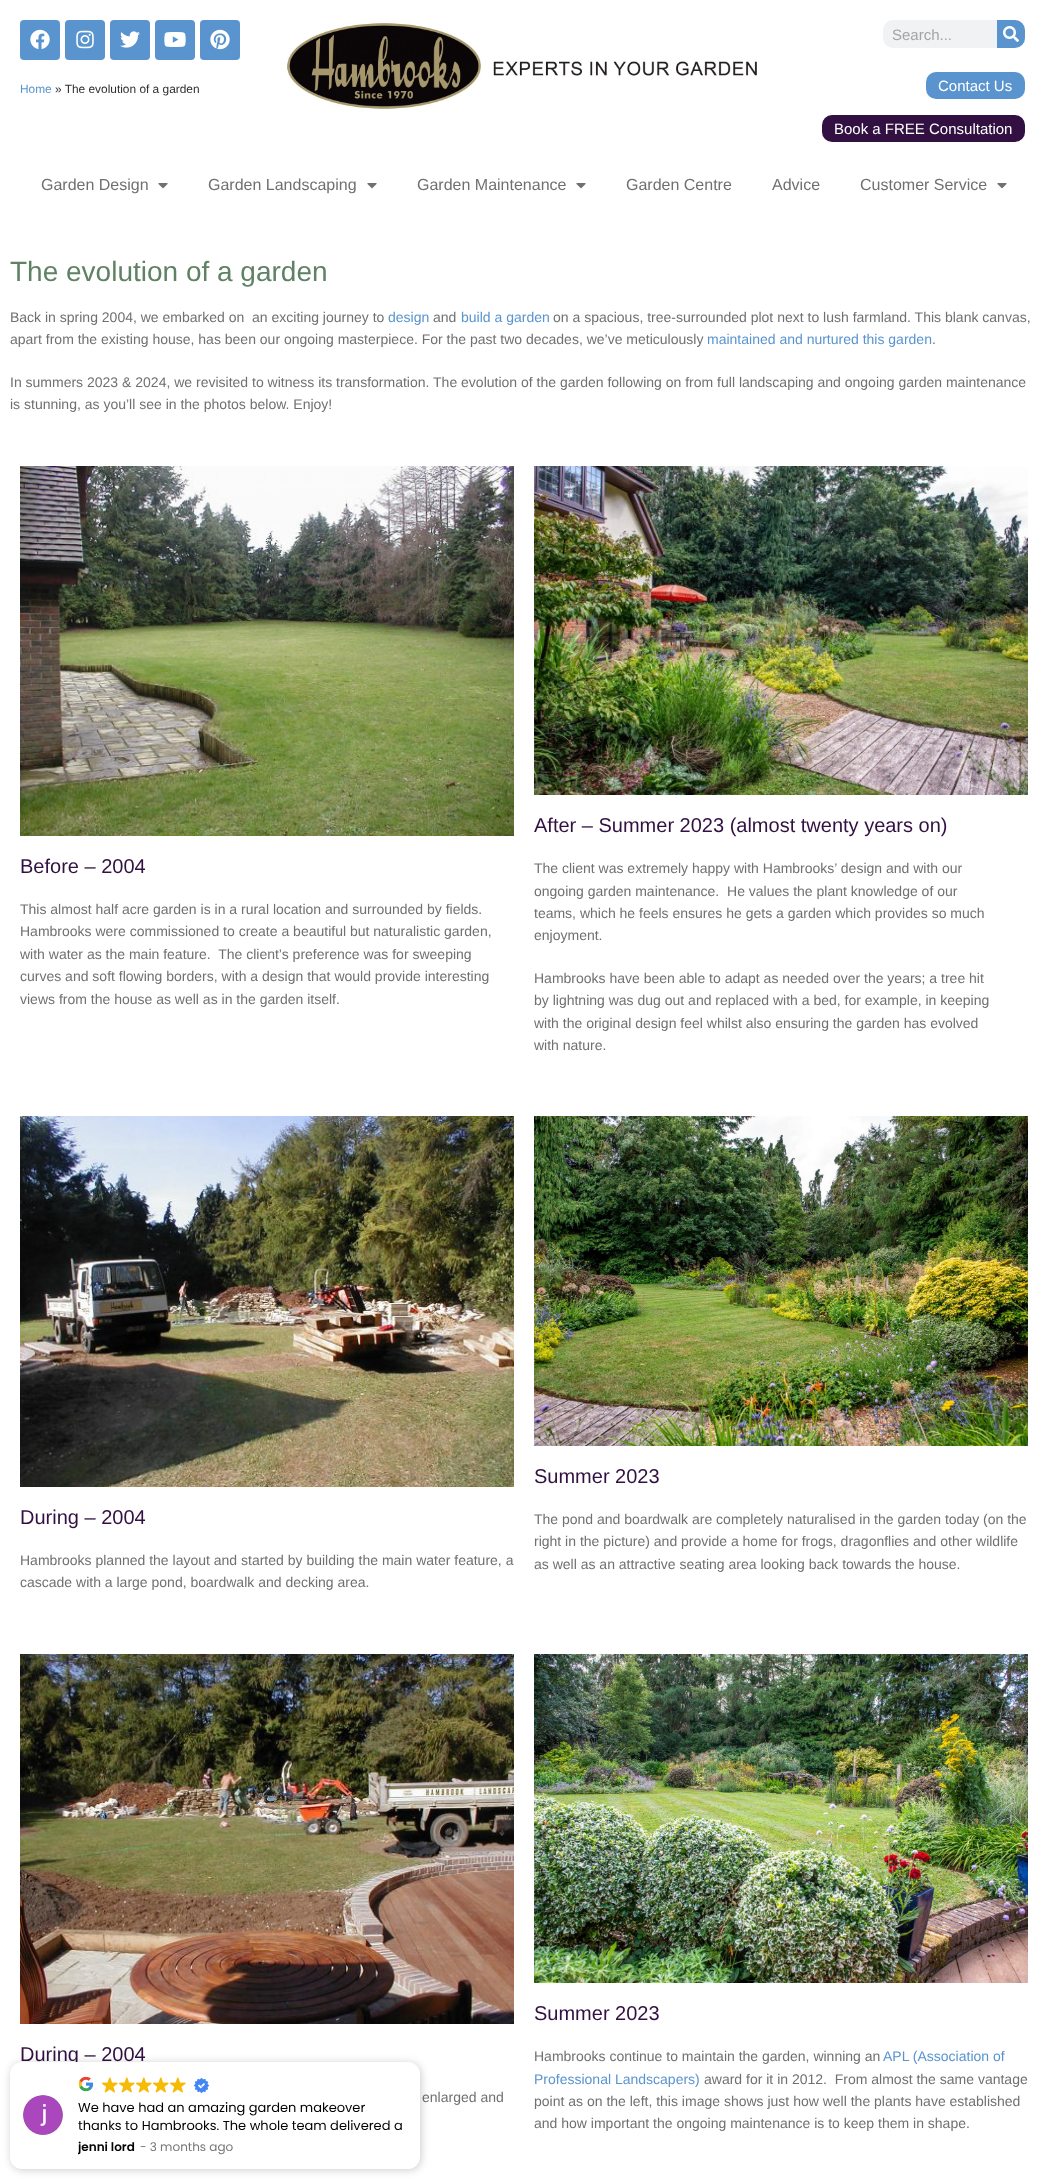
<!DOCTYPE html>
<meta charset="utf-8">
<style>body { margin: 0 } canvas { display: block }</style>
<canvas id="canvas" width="1048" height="2179"></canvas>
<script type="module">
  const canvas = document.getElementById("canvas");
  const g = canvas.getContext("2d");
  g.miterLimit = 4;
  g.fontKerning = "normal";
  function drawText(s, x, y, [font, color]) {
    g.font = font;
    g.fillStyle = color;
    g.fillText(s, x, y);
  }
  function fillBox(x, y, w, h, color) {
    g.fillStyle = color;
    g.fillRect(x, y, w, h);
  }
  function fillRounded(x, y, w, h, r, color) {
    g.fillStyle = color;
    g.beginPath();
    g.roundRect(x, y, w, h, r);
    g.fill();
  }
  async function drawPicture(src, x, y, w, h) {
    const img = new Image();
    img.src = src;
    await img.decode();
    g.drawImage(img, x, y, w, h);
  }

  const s1 = ["11.9px Liberation Sans", "#5994CF"];
  const s2 = ["11.9px Liberation Sans", "#302F2F"];
  const s3 = ["15px Liberation Sans", "#A4A4A4"];
  const s4 = ["15px Liberation Sans", "#FFFFFF"];
  const s5 = ["16px Liberation Sans", "#707070"];
  const s6 = ["28px Liberation Sans", "#5E8263"];
  const s7 = ["14px Liberation Sans", "#707070"];
  const s8 = ["14px Liberation Sans", "#5994CF"];
  const s9 = ["20px Liberation Sans", "#321142"];
  const s10 = ["13px Poppins", "#000000"];
  const s11 = ["600 12px Poppins", "#000000"];
  const s12 = ["12px Poppins", "#767676"];

  fillBox(0, 0, 1048, 2179, "#FFFFFF");
  fillRounded(20, 20, 40, 40, 4, "#5994CF");
  await drawPicture("pic1.png", 30, 29, 20, 20);
  fillRounded(65, 20, 40, 40, 4, "#5994CF");
  await drawPicture("pic2.png", 76, 30, 18, 19);
  fillRounded(110, 20, 40, 40, 4, "#5994CF");
  await drawPicture("pic3.png", 120, 31, 20, 17);
  fillRounded(155, 20, 40, 40, 4, "#5994CF");
  await drawPicture("pic4.png", 164, 32, 22, 15);
  fillRounded(200, 20, 40, 40, 4, "#5994CF");
  await drawPicture("pic5.png", 210, 29, 20, 21);
  drawText("Home", 20, 93, s1);
  drawText("» The evolution of a garden", 55, 93, s2);
  await drawPicture("pic6.png", 287, 20, 470, 92);
  fillRounded(883, 20, 142, 28, 10, "#F1F2F3");
  drawText("Search...", 892, 40, s3);
  g.fillStyle = "#5994CF";
  g.beginPath();
  g.roundRect(997, 20, 28, 28, [0, 10, 10, 0]);
  g.fill();
  await drawPicture("pic7.png", 1003, 26, 16, 16);
  fillRounded(926, 72, 99, 27, 10, "#5994CF");
  drawText("Contact Us", 938, 91, s4);
  fillRounded(822, 115, 203, 27, 10, "#321142");
  drawText("Book a FREE Consultation", 834, 134, s4);
  drawText("Garden Design", 41, 190, s5);
  await drawPicture("pic8.png", 158, 183, 10, 6);
  drawText("Garden Landscaping", 208, 190, s5);
  await drawPicture("pic8.png", 367, 183, 10, 6);
  drawText("Garden Maintenance", 417, 190, s5);
  await drawPicture("pic8.png", 576, 183, 10, 6);
  drawText("Garden Centre", 626, 190, s5);
  drawText("Advice", 772, 190, s5);
  drawText("Customer Service", 860, 190, s5);
  await drawPicture("pic8.png", 997, 183, 10, 6);
  drawText("The evolution of a garden", 10, 281, s6);
  drawText("Back in spring 2004, we embarked on  an exciting journey to", 10, 322, s7);
  drawText("design", 388, 322, s8);
  drawText("and", 433, 322, s7);
  drawText("build a garden", 461, 322, s8);
  drawText("on a spacious, tree-surrounded plot next to lush farmland. This blank canvas,", 553, 322, s7);
  drawText("apart from the existing house, has been our ongoing masterpiece. For the past two decades, we’ve meticulously", 10, 344, s7);
  drawText("maintained and nurtured this garden", 707, 344, s8);
  drawText(".", 932, 344, s7);
  drawText("In summers 2023 & 2024, we revisited to witness its transformation. The evolution of the garden following on from full landscaping and ongoing garden maintenance", 10, 387, s7);
  drawText("is stunning, as you’ll see in the photos below. Enjoy!", 10, 409, s7);
  await drawPicture("pic9.png", 20, 466, 494, 370);
  drawText("Before – 2004", 20, 873, s9);
  drawText("This almost half acre garden is in a rural location and surrounded by fields.", 20, 914, s7);
  drawText("Hambrooks were commissioned to create a beautiful but naturalistic garden,", 20, 936, s7);
  drawText("with water as the main feature.  The client’s preference was for sweeping", 20, 959, s7);
  drawText("curves and soft flowing borders, with a design that would provide interesting", 20, 981, s7);
  drawText("views from the house as well as in the garden itself.", 20, 1004, s7);
  await drawPicture("pic10.png", 534, 466, 494, 329);
  drawText("After – Summer 2023 (almost twenty years on)", 534, 832, s9);
  drawText("The client was extremely happy with Hambrooks’ design and with our", 534, 873, s7);
  drawText("ongoing garden maintenance.  He values the plant knowledge of our", 534, 896, s7);
  drawText("teams, which he feels ensures he gets a garden which provides so much", 534, 918, s7);
  drawText("enjoyment.", 534, 940, s7);
  drawText("Hambrooks have been able to adapt as needed over the years; a tree hit", 534, 983, s7);
  drawText("by lightning was dug out and replaced with a bed, for example, in keeping", 534, 1005, s7);
  drawText("with the original design feel whilst also ensuring the garden has evolved", 534, 1028, s7);
  drawText("with nature.", 534, 1050, s7);
  await drawPicture("pic11.png", 20, 1116, 494, 371);
  drawText("During – 2004", 20, 1524, s9);
  drawText("Hambrooks planned the layout and started by building the main water feature, a", 20, 1565, s7);
  drawText("cascade with a large pond, boardwalk and decking area.", 20, 1587, s7);
  await drawPicture("pic12.png", 534, 1116, 494, 330);
  drawText("Summer 2023", 534, 1483, s9);
  drawText("The pond and boardwalk are completely naturalised in the garden today (on the", 534, 1524, s7);
  drawText("right in the picture) and provide a home for frogs, dragonflies and other wildlife", 534, 1546, s7);
  drawText("as well as an attractive seating area looking back towards the house.", 534, 1569, s7);
  await drawPicture("pic13.png", 20, 1654, 494, 370);
  drawText("During – 2004", 20, 2061, s9);
  drawText("enlarged and", 422, 2102, s7);
  await drawPicture("pic14.png", 534, 1654, 494, 329);
  drawText("Summer 2023", 534, 2020, s9);
  drawText("Hambrooks continue to maintain the garden, winning an", 534, 2061, s7);
  drawText("APL (Association of", 883, 2061, s8);
  drawText("Professional Landscapers)", 534, 2084, s8);
  drawText("award for it in 2012.  From almost the same vantage", 704, 2084, s7);
  drawText("point as on the left, this image shows just how well the plants have established", 534, 2106, s7);
  drawText("and how important the ongoing maintenance is to keep them in shape.", 534, 2128, s7);
  g.fillStyle = "rgba(0, 0, 0, 0.2)";
  g.filter = "blur(4px)";
  g.beginPath();
  g.roundRect(11, 2063, 410, 107, 12);
  g.fill();
  g.filter = "none";
  fillRounded(10, 2062, 410, 107, 12, "#FFFFFF");
  await drawPicture("pic15.png", 23, 2095, 40, 40);
  await drawPicture("pic16.png", 78, 2076, 15, 16);
  await drawPicture("pic17.png", 102, 2077, 16, 16);
  await drawPicture("pic17.png", 119, 2077, 16, 16);
  await drawPicture("pic17.png", 136, 2077, 16, 16);
  await drawPicture("pic17.png", 153, 2077, 16, 16);
  await drawPicture("pic17.png", 170, 2077, 16, 16);
  await drawPicture("pic18.png", 194, 2078, 15, 15);
  drawText("We have had an amazing garden makeover", 78, 2112, s10);
  drawText("thanks to Hambrooks. The whole team delivered a", 78, 2130, s10);
  g.save();
  g.beginPath();
  g.rect(78, 2139, 62, 17);
  g.clip();
  drawText("jenni lord", 78, 2151, s11);
  g.restore();
  drawText("- 3 months ago", 140, 2151, s12);
</script>
